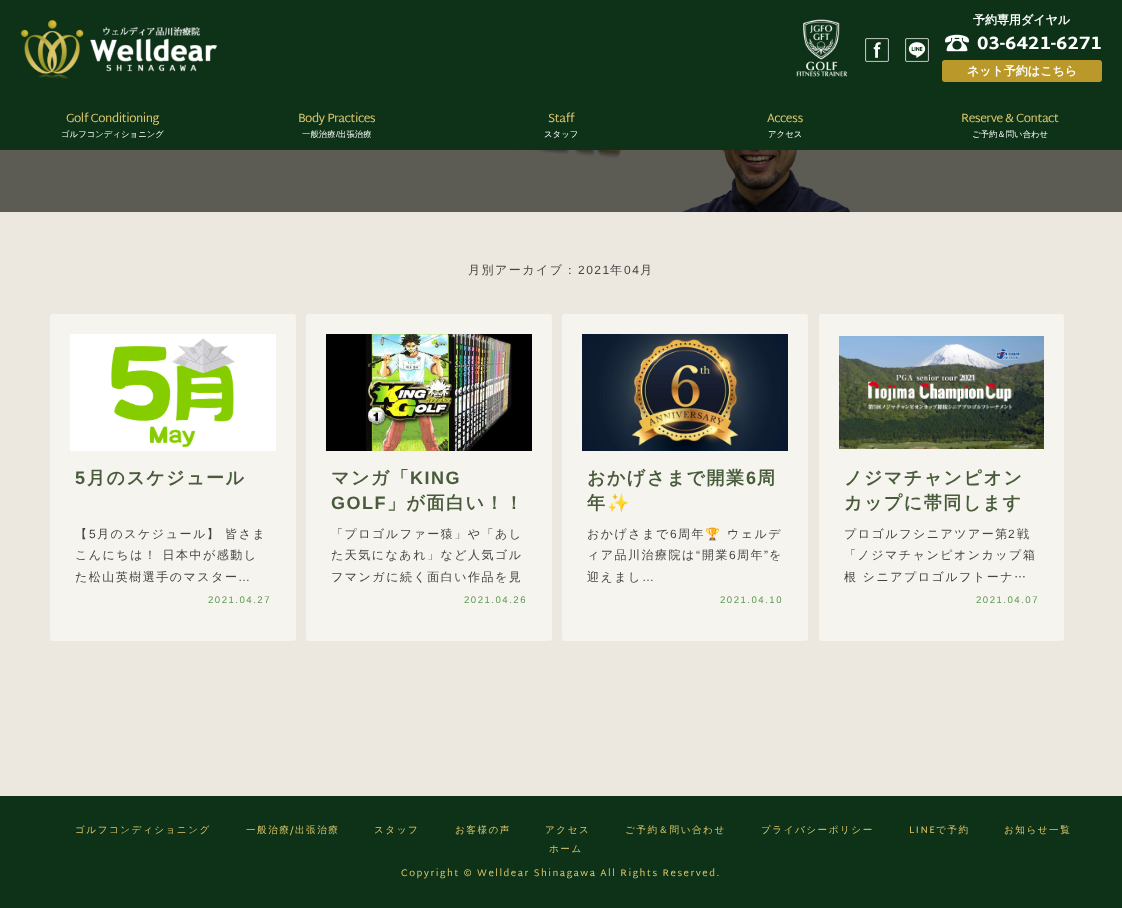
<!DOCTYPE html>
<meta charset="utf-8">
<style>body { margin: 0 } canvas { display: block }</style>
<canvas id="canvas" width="1122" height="908"></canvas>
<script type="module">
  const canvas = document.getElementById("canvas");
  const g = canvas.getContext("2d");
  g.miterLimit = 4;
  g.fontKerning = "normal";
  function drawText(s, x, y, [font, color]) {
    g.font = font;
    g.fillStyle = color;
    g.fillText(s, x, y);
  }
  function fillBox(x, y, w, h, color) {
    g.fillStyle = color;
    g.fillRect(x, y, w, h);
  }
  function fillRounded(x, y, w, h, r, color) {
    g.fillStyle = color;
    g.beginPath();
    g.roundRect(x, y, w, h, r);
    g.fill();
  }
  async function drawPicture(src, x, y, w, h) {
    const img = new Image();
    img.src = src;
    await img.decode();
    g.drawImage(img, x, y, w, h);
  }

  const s1 = ["bold 12px WenQuanYi Zen Hei", "#FFFFFF"];
  const s2 = ["800 18px Martel Sans", "#FFFFFF"];
  const s3 = ["12px Martel Sans", "#DCC56A"];
  const s4 = ["500 8.4px WenQuanYi Zen Hei", "#FFFFFF"];
  const s5 = ["8.4px Liberation Sans", "#FFFFFF"];
  const s6 = ["500 12px WenQuanYi Zen Hei", "#454545"];
  const s7 = ["12px Liberation Sans", "#454545"];
  const s8 = ["bold 18px Liberation Sans", "#485C3B"];
  const s9 = ["bold 18px WenQuanYi Zen Hei", "#485C3B"];
  const s10 = ["9.6px Liberation Sans", "#5D9954"];
  const s11 = ["bold 18px Noto Color Emoji", "#485C3B"];
  const s12 = ["12px Noto Color Emoji", "#454545"];
  const s13 = ["500 9.6px WenQuanYi Zen Hei", "#DCC56A"];
  const s14 = ["9.6px Martel Sans", "#DCC56A"];

  fillBox(0, 0, 1122, 908, "#0D3218");
  await drawPicture("pic1.png", 20, 20, 198, 59);
  await drawPicture("pic2.png", 796, 19, 52, 58);
  await drawPicture("pic3.png", 865, 38, 24, 24);
  await drawPicture("pic4.png", 905, 38, 24, 24);
  drawText("予約専用ダイヤル", 973, 24, s1);
  await drawPicture("pic5.png", 945, 34, 24, 18);
  drawText("03-6421-6271", 977, 49, s2);
  fillRounded(942, 60, 160, 22, 3, "#BA9829");
  drawText("ネット予約はこちら", 967, 75, s1);
  g.letterSpacing = "-0.5px";
  drawText("Golf Conditioning", 66, 122, s3);
  g.letterSpacing = "0px";
  drawText("ゴルフコンディショニング", 61, 137, s4);
  g.letterSpacing = "-0.5px";
  drawText("Body Practices", 298, 122, s3);
  g.letterSpacing = "0px";
  drawText("一般治療 出張治療", 302, 137, s4);
  drawText("/", 336, 137, s5);
  g.letterSpacing = "-0.5px";
  drawText("Staff", 548, 122, s3);
  g.letterSpacing = "0px";
  drawText("スタッフ", 544, 137, s4);
  g.letterSpacing = "-0.5px";
  drawText("Access", 767, 122, s3);
  g.letterSpacing = "0px";
  drawText("アクセス", 768, 137, s4);
  g.letterSpacing = "-0.5px";
  drawText("Reserve & Contact", 961, 122, s3);
  g.letterSpacing = "0px";
  drawText("ご予約＆問い合わせ", 972, 137, s4);
  await drawPicture("pic6.png", 0, 150, 1122, 62);
  fillBox(0, 212, 1122, 584, "#EDE8DF");
  g.letterSpacing = "1.5px";
  drawText("月別アーカイブ：", 468, 274, s6);
  drawText("2021", 578, 274, s7);
  drawText("年", 610, 274, s6);
  drawText("04", 624, 274, s7);
  drawText("月", 640, 274, s6);
  fillRounded(50, 314, 246, 327, 3, "#F6F4EF");
  await drawPicture("pic7.png", 70, 334, 206, 117);
  drawText("5", 75, 484, s8);
  drawText("月のスケジュール", 87, 484, s9);
  drawText("【", 75, 538, s6);
  drawText("5", 89, 538, s7);
  drawText("月のスケジュール】 皆さま", 97, 538, s6);
  drawText("こんにちは！ 日本中が感動し", 75, 559, s6);
  drawText("た松山英樹選手のマスター", 75, 581, s6);
  drawText("…", 238, 581, s7);
  drawText("2021.04.27", 208, 603, s10);
  fillRounded(306, 314, 246, 327, 3, "#F6F4EF");
  await drawPicture("pic8.png", 326, 334, 206, 117);
  drawText("マンガ「", 331, 484, s9);
  drawText("KING", 410, 484, s8);
  drawText("GOLF", 331, 509, s8);
  drawText("」が面白い！！", 387, 509, s9);
  drawText("「プロゴルファー猿」や「あし", 331, 538, s6);
  drawText("た天気になあれ」など人気ゴル", 331, 559, s6);
  drawText("フマンガに続く面白い作品を見", 331, 581, s6);
  drawText("2021.04.26", 464, 603, s10);
  fillRounded(562, 314, 246, 327, 3, "#F6F4EF");
  await drawPicture("pic9.png", 582, 334, 206, 117);
  drawText("おかげさまで開業", 587, 484, s9);
  drawText("6", 746, 484, s8);
  drawText("周", 757, 484, s9);
  drawText("年", 587, 509, s9);
  drawText("✨", 607, 509, s11);
  drawText("おかげさまで", 587, 538, s6);
  drawText("6", 670, 538, s7);
  drawText("周年", 678, 538, s6);
  drawText("🏆", 705, 538, s12);
  drawText("ウェルデ", 727, 538, s6);
  drawText("ィア品川治療院は", 587, 559, s6);
  drawText("“", 696, 559, s7);
  drawText("開業", 702, 559, s6);
  drawText("6", 729, 559, s7);
  drawText("周年", 737, 559, s6);
  drawText("”", 764, 559, s7);
  drawText("を", 769, 559, s6);
  drawText("迎えまし", 587, 581, s6);
  drawText("…", 642, 581, s7);
  drawText("2021.04.10", 720, 603, s10);
  fillRounded(819, 314, 245, 327, 3, "#F6F4EF");
  await drawPicture("pic10.png", 839, 336, 205, 113);
  drawText("ノジマチャンピオン", 844, 484, s9);
  drawText("カップに帯同します", 844, 509, s9);
  drawText("プロゴルフシニアツアー第", 844, 538, s6);
  drawText("2", 1008, 538, s7);
  drawText("戦", 1017, 538, s6);
  drawText("「ノジマチャンピオンカップ箱", 844, 559, s6);
  drawText("根 シニアプロゴルフトーナ…", 844, 581, s6);
  drawText("2021.04.07", 976, 603, s10);
  drawText("ゴルフコンディショニング", 75, 833, s13);
  drawText("一般治療", 246, 833, s13);
  drawText("/", 290, 833, s14);
  drawText("出張治療", 295, 833, s13);
  drawText("スタッフ", 374, 833, s13);
  drawText("お客様の声", 455, 833, s13);
  drawText("アクセス", 545, 833, s13);
  drawText("ご予約＆問い合わせ", 625, 833, s13);
  drawText("プライバシーポリシー", 761, 833, s13);
  drawText("LINE", 909, 833, s14);
  drawText("で予約", 936, 833, s13);
  drawText("お知らせ一覧", 1004, 833, s13);
  drawText("ホーム", 549, 852, s13);
  drawText("Copyright © Welldear Shinagawa All Rights Reserved.", 401, 876, s14);
</script>
